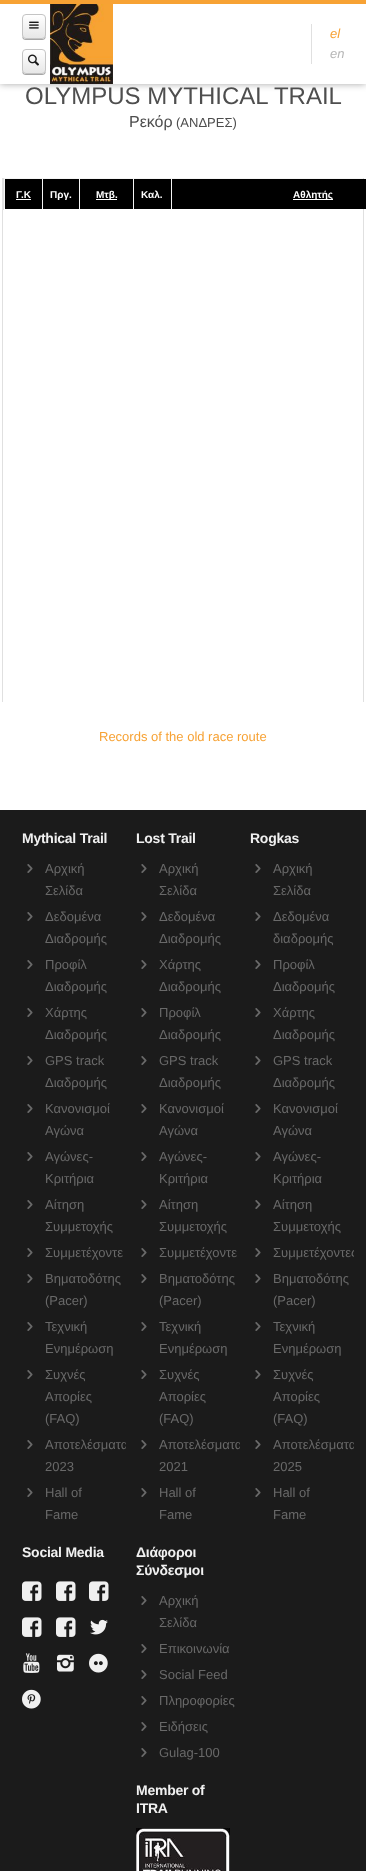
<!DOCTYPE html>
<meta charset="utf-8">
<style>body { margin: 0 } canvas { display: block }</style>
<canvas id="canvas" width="366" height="1871"></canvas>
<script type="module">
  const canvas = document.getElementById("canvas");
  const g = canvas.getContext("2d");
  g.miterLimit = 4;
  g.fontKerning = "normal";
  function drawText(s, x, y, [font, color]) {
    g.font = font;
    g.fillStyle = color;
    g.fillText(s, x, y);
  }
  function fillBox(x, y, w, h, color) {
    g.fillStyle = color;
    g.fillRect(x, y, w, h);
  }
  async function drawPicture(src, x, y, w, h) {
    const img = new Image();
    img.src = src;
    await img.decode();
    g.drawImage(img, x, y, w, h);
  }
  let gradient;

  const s1 = ["italic 13px Liberation Sans", "#F7A234"];
  const s2 = ["italic 13px Liberation Sans", "#B6B6B6"];
  const s3 = ["24px Liberation Sans", "#4E4E4E"];
  const s4 = ["16px Liberation Sans", "#4E4E4E"];
  const s5 = ["13px Liberation Sans", "#4E4E4E"];
  const s6 = ["bold 10px Liberation Sans", "#FFFFFF"];
  const s7 = ["13px Liberation Sans", "#F7A234"];
  const s8 = ["bold 14px Liberation Sans", "#F0F0F0"];
  const s9 = ["13px Liberation Sans", "#696969"];

  fillBox(0, 0, 366, 1871, "#1B1B1B");
  fillBox(0, 84, 366, 726, "#FFFFFF");
  g.fillStyle = "rgba(0, 0, 0, 0.35)";
  g.filter = "blur(3.5px)";
  g.beginPath();
  g.rect(0, 4, 366, 80);
  g.fill();
  g.filter = "none";
  fillBox(0, 0, 366, 4, "#F7A234");
  fillBox(0, 4, 366, 80, "#FFFFFF");
  g.fillStyle = "#A6A6A6";
  g.beginPath();
  g.moveTo(22, 35);
  g.bezierCurveTo(22, 40, 24.5, 40, 28.5, 40);
  g.lineTo(39.5, 40);
  g.bezierCurveTo(43.5, 40, 46, 40, 46, 35);
  g.bezierCurveTo(46, 37, 44, 39, 42, 39);
  g.lineTo(26, 39);
  g.bezierCurveTo(24, 39, 22, 37, 22, 35);
  g.closePath();
  g.fill();
  g.save();
  g.beginPath();
  g.roundRect(22, 14, 24, 25, 4);
  g.clip();
  gradient = g.createLinearGradient(34, 15, 34, 38);
  gradient.addColorStop(0, "#FFFFFF");
  gradient.addColorStop(1, "#E7E7E7");
  g.fillStyle = gradient;
  g.fillRect(22, 15, 24, 23);
  g.restore();
  g.beginPath();
  g.roundRect(22.5, 14.5, 23, 24, 3.5);
  g.strokeStyle = "#C4C4C4";
  g.stroke();
  await drawPicture("pic1.png", 29, 21, 10, 8);
  g.beginPath();
  g.moveTo(22, 70);
  g.bezierCurveTo(22, 75, 24.5, 75, 28.5, 75);
  g.lineTo(39.5, 75);
  g.bezierCurveTo(43.5, 75, 46, 75, 46, 70);
  g.bezierCurveTo(46, 72, 44, 74, 42, 74);
  g.lineTo(26, 74);
  g.bezierCurveTo(24, 74, 22, 72, 22, 70);
  g.closePath();
  g.fill();
  g.save();
  g.beginPath();
  g.roundRect(22, 49, 24, 25, 4);
  g.clip();
  gradient = g.createLinearGradient(34, 50, 34, 73);
  gradient.addColorStop(0, "#FFFFFF");
  gradient.addColorStop(1, "#E7E7E7");
  g.fillStyle = gradient;
  g.fillRect(22, 50, 24, 23);
  g.restore();
  g.beginPath();
  g.roundRect(22.5, 49.5, 23, 24, 3.5);
  g.stroke();
  await drawPicture("pic2.png", 28, 54, 11, 12);
  await drawPicture("pic3.png", 50, 4, 63, 80);
  fillBox(311, 24, 1, 40, "#E0E0E0");
  drawText("el", 330, 38, s1);
  drawText("en", 330, 58, s2);
  drawText("OLYMPUS MYTHICAL TRAIL", 25, 104, s3);
  drawText("Ρεκόρ", 129, 127, s4);
  drawText("(ΑΝΔΡΕΣ)", 176, 127, s5);
  fillBox(363, 178, 1, 524, "#E0E0E0");
  fillBox(2, 178, 1, 524, "#E0E0E0");
  fillBox(4, 178, 359, 30, "#F5F5F5");
  fillBox(3, 178, 1, 32, "#E0E0E0");
  fillBox(42, 208, 130, 1, "#F5F5F5");
  fillBox(5, 179, 37, 30, "#000000");
  drawText("Γ.Κ", 16, 198, s6);
  fillBox(16, 199, 15, 1, "#FFFFFF");
  fillBox(43, 179, 36, 30, "#000000");
  drawText("Πργ.", 50, 198, s6);
  fillBox(80, 179, 53, 30, "#000000");
  fillBox(96, 199, 21, 1, "#FFFFFF");
  drawText("Μτβ.", 96, 198, s6);
  fillBox(134, 179, 37, 30, "#000000");
  drawText("Καλ.", 141, 198, s6);
  fillBox(172, 179, 194, 30, "#000000");
  fillBox(293, 199, 40, 1, "#FFFFFF");
  drawText("Αθλητής", 293, 198, s6);
  drawText("Records of the old race route", 99, 741, s7);
  g.letterSpacing = "-0.25px";
  drawText("Mythical Trail", 22, 843, s8);
  await drawPicture("pic4.png", 27, 864, 6, 9);
  g.letterSpacing = "0px";
  drawText("Αρχική", 45, 873, s9);
  drawText("Σελίδα", 45, 895, s9);
  await drawPicture("pic4.png", 27, 912, 6, 9);
  drawText("Δεδομένα", 45, 921, s9);
  drawText("Διαδρομής", 45, 943, s9);
  await drawPicture("pic4.png", 27, 960, 6, 9);
  drawText("Προφίλ", 45, 969, s9);
  drawText("Διαδρομής", 45, 991, s9);
  await drawPicture("pic4.png", 27, 1008, 6, 9);
  drawText("Χάρτης", 45, 1017, s9);
  drawText("Διαδρομής", 45, 1039, s9);
  await drawPicture("pic4.png", 27, 1056, 6, 9);
  drawText("GPS track", 45, 1065, s9);
  drawText("Διαδρομής", 45, 1087, s9);
  await drawPicture("pic4.png", 27, 1104, 6, 9);
  drawText("Κανονισμοί", 45, 1113, s9);
  drawText("Αγώνα", 45, 1135, s9);
  await drawPicture("pic4.png", 27, 1152, 6, 9);
  drawText("Αγώνες-", 45, 1161, s9);
  drawText("Κριτήρια", 45, 1183, s9);
  await drawPicture("pic4.png", 27, 1200, 6, 9);
  drawText("Αίτηση", 45, 1209, s9);
  drawText("Συμμετοχής", 45, 1231, s9);
  await drawPicture("pic4.png", 27, 1248, 6, 9);
  drawText("Συμμετέχοντε", 45, 1257, s9);
  await drawPicture("pic4.png", 27, 1274, 6, 9);
  drawText("Βηματοδότης", 45, 1283, s9);
  drawText("(Pacer)", 45, 1305, s9);
  await drawPicture("pic4.png", 27, 1322, 6, 9);
  drawText("Τεχνική", 45, 1331, s9);
  drawText("Ενημέρωση", 45, 1353, s9);
  await drawPicture("pic4.png", 27, 1370, 6, 9);
  drawText("Συχνές", 45, 1379, s9);
  drawText("Απορίες", 45, 1401, s9);
  drawText("(FAQ)", 45, 1423, s9);
  await drawPicture("pic4.png", 27, 1440, 6, 9);
  g.save();
  g.beginPath();
  g.rect(12, 821, 114, 714);
  g.clip();
  drawText("Αποτελέσματα", 45, 1449, s9);
  g.restore();
  drawText("2023", 45, 1471, s9);
  await drawPicture("pic4.png", 27, 1488, 6, 9);
  drawText("Hall of", 45, 1497, s9);
  drawText("Fame", 45, 1519, s9);
  g.letterSpacing = "-0.25px";
  drawText("Lost Trail", 136, 843, s8);
  await drawPicture("pic4.png", 141, 864, 6, 9);
  g.letterSpacing = "0px";
  drawText("Αρχική", 159, 873, s9);
  drawText("Σελίδα", 159, 895, s9);
  await drawPicture("pic4.png", 141, 912, 6, 9);
  drawText("Δεδομένα", 159, 921, s9);
  drawText("Διαδρομής", 159, 943, s9);
  await drawPicture("pic4.png", 141, 960, 6, 9);
  drawText("Χάρτης", 159, 969, s9);
  drawText("Διαδρομής", 159, 991, s9);
  await drawPicture("pic4.png", 141, 1008, 6, 9);
  drawText("Προφίλ", 159, 1017, s9);
  drawText("Διαδρομής", 159, 1039, s9);
  await drawPicture("pic4.png", 141, 1056, 6, 9);
  drawText("GPS track", 159, 1065, s9);
  drawText("Διαδρομής", 159, 1087, s9);
  await drawPicture("pic4.png", 141, 1104, 6, 9);
  drawText("Κανονισμοί", 159, 1113, s9);
  drawText("Αγώνα", 159, 1135, s9);
  await drawPicture("pic4.png", 141, 1152, 6, 9);
  drawText("Αγώνες-", 159, 1161, s9);
  drawText("Κριτήρια", 159, 1183, s9);
  await drawPicture("pic4.png", 141, 1200, 6, 9);
  drawText("Αίτηση", 159, 1209, s9);
  drawText("Συμμετοχής", 159, 1231, s9);
  await drawPicture("pic4.png", 141, 1248, 6, 9);
  drawText("Συμμετέχοντε", 159, 1257, s9);
  await drawPicture("pic4.png", 141, 1274, 6, 9);
  drawText("Βηματοδότης", 159, 1283, s9);
  drawText("(Pacer)", 159, 1305, s9);
  await drawPicture("pic4.png", 141, 1322, 6, 9);
  drawText("Τεχνική", 159, 1331, s9);
  drawText("Ενημέρωση", 159, 1353, s9);
  await drawPicture("pic4.png", 141, 1370, 6, 9);
  drawText("Συχνές", 159, 1379, s9);
  drawText("Απορίες", 159, 1401, s9);
  drawText("(FAQ)", 159, 1423, s9);
  await drawPicture("pic4.png", 141, 1440, 6, 9);
  g.save();
  g.beginPath();
  g.rect(126, 821, 114, 714);
  g.clip();
  drawText("Αποτελέσματα", 159, 1449, s9);
  g.restore();
  drawText("2021", 159, 1471, s9);
  await drawPicture("pic4.png", 141, 1488, 6, 9);
  drawText("Hall of", 159, 1497, s9);
  drawText("Fame", 159, 1519, s9);
  g.letterSpacing = "-0.25px";
  drawText("Rogkas", 250, 843, s8);
  await drawPicture("pic4.png", 255, 864, 6, 9);
  g.letterSpacing = "0px";
  drawText("Αρχική", 273, 873, s9);
  drawText("Σελίδα", 273, 895, s9);
  await drawPicture("pic4.png", 255, 912, 6, 9);
  drawText("Δεδομένα", 273, 921, s9);
  drawText("διαδρομής", 273, 943, s9);
  await drawPicture("pic4.png", 255, 960, 6, 9);
  drawText("Προφίλ", 273, 969, s9);
  drawText("Διαδρομής", 273, 991, s9);
  await drawPicture("pic4.png", 255, 1008, 6, 9);
  drawText("Χάρτης", 273, 1017, s9);
  drawText("Διαδρομής", 273, 1039, s9);
  await drawPicture("pic4.png", 255, 1056, 6, 9);
  drawText("GPS track", 273, 1065, s9);
  drawText("Διαδρομής", 273, 1087, s9);
  await drawPicture("pic4.png", 255, 1104, 6, 9);
  drawText("Κανονισμοί", 273, 1113, s9);
  drawText("Αγώνα", 273, 1135, s9);
  await drawPicture("pic4.png", 255, 1152, 6, 9);
  drawText("Αγώνες-", 273, 1161, s9);
  drawText("Κριτήρια", 273, 1183, s9);
  await drawPicture("pic4.png", 255, 1200, 6, 9);
  drawText("Αίτηση", 273, 1209, s9);
  drawText("Συμμετοχής", 273, 1231, s9);
  await drawPicture("pic4.png", 255, 1248, 6, 9);
  g.save();
  g.beginPath();
  g.rect(240, 821, 114, 714);
  g.clip();
  drawText("Συμμετέχοντες", 273, 1257, s9);
  g.restore();
  await drawPicture("pic4.png", 255, 1274, 6, 9);
  drawText("Βηματοδότης", 273, 1283, s9);
  drawText("(Pacer)", 273, 1305, s9);
  await drawPicture("pic4.png", 255, 1322, 6, 9);
  drawText("Τεχνική", 273, 1331, s9);
  drawText("Ενημέρωση", 273, 1353, s9);
  await drawPicture("pic4.png", 255, 1370, 6, 9);
  drawText("Συχνές", 273, 1379, s9);
  drawText("Απορίες", 273, 1401, s9);
  drawText("(FAQ)", 273, 1423, s9);
  await drawPicture("pic4.png", 255, 1440, 6, 9);
  g.save();
  g.beginPath();
  g.rect(240, 821, 114, 714);
  g.clip();
  drawText("Αποτελέσματα", 273, 1449, s9);
  g.restore();
  drawText("2025", 273, 1471, s9);
  await drawPicture("pic4.png", 255, 1488, 6, 9);
  drawText("Hall of", 273, 1497, s9);
  drawText("Fame", 273, 1519, s9);
  g.letterSpacing = "-0.25px";
  drawText("Social Media", 22, 1557, s8);
  await drawPicture("pic5.png", 22, 1581, 20, 20);
  await drawPicture("pic5.png", 56, 1581, 20, 20);
  await drawPicture("pic5.png", 89, 1581, 20, 20);
  await drawPicture("pic5.png", 22, 1617, 20, 20);
  await drawPicture("pic5.png", 56, 1617, 20, 20);
  await drawPicture("pic6.png", 90, 1619, 18, 16);
  await drawPicture("pic7.png", 23, 1653, 17, 20);
  await drawPicture("pic8.png", 57, 1654, 17, 18);
  await drawPicture("pic9.png", 89, 1653, 19, 20);
  await drawPicture("pic10.png", 22, 1689, 19, 20);
  drawText("Διάφοροι", 136, 1557, s8);
  drawText("Σύνδεσμοι", 136, 1575, s8);
  await drawPicture("pic4.png", 141, 1596, 6, 9);
  g.letterSpacing = "0px";
  drawText("Αρχική", 159, 1605, s9);
  drawText("Σελίδα", 159, 1627, s9);
  await drawPicture("pic4.png", 141, 1644, 6, 9);
  drawText("Επικοινωνία", 159, 1653, s9);
  await drawPicture("pic4.png", 141, 1670, 6, 9);
  drawText("Social Feed", 159, 1679, s9);
  await drawPicture("pic4.png", 141, 1696, 6, 9);
  drawText("Πληροφορίες", 159, 1705, s9);
  await drawPicture("pic4.png", 141, 1722, 6, 9);
  drawText("Ειδήσεις", 159, 1731, s9);
  await drawPicture("pic4.png", 141, 1748, 6, 9);
  drawText("Gulag-100", 159, 1757, s9);
  g.letterSpacing = "-0.25px";
  drawText("Member of", 136, 1795, s8);
  drawText("ITRA", 136, 1813, s8);
  await drawPicture("pic11.png", 136, 1828, 94, 43);
</script>
